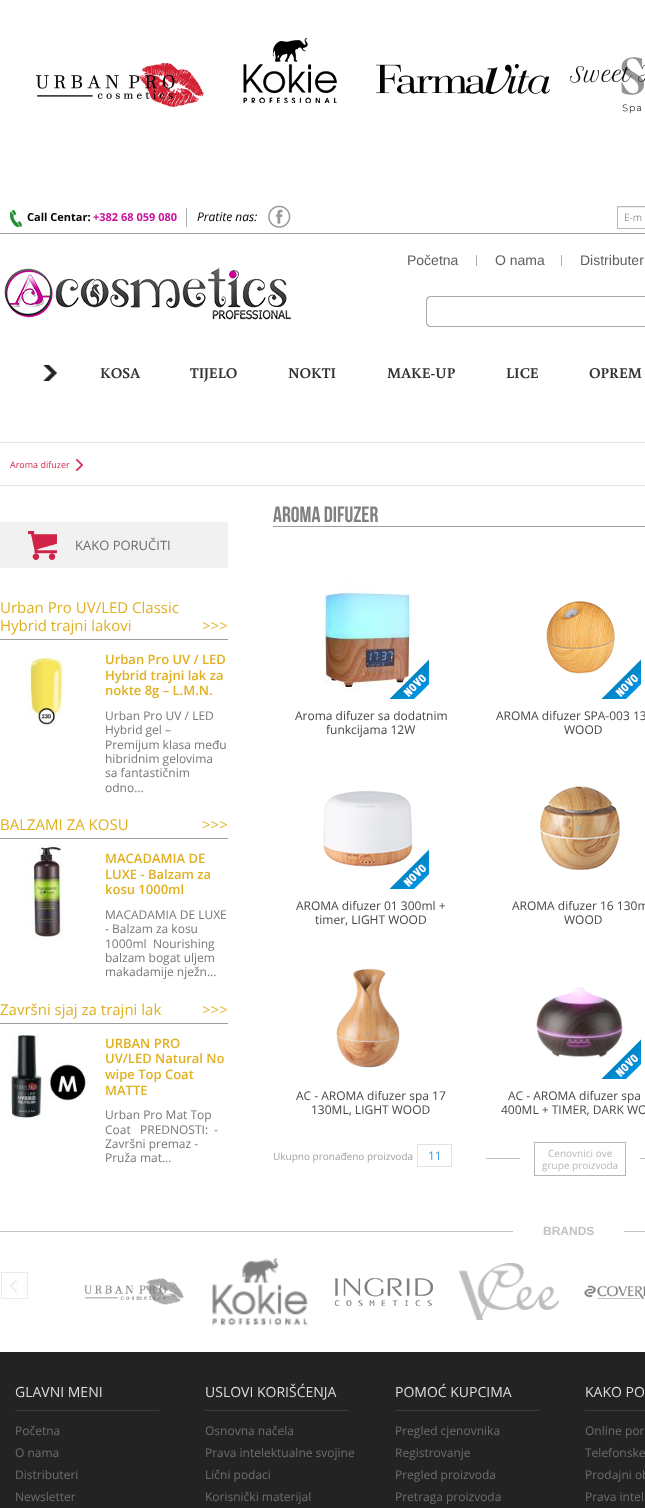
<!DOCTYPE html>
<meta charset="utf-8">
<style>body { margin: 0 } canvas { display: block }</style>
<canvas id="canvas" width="645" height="1508"></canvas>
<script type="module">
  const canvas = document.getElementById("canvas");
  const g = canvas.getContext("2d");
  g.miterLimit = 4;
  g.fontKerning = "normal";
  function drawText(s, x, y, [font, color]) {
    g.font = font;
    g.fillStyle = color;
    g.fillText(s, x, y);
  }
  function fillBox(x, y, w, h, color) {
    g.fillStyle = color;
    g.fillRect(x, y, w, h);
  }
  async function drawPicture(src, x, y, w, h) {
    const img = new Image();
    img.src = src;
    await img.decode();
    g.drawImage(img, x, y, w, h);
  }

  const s1 = ["bold 11px Open Sans", "#000000"];
  const s2 = ["bold 11px Open Sans", "#C8129C"];
  const s3 = ["italic 12px Open Sans", "#000000"];
  const s4 = ["10px Open Sans", "#999999"];
  const s5 = ["14px Liberation Sans", "#5F5F5F"];
  const s6 = ["bold 15px Buenard", "#333333"];
  const s7 = ["9px Open Sans", "#D42A50"];
  const s8 = ["13px Open Sans", "#6B6B6B"];
  const s9 = ["15px Open Sans", "#E1B021"];
  const s10 = ["600 13px Open Sans", "#E1B021"];
  const s11 = ["12px Open Sans", "#777777"];
  const s12 = ["22px Bebas Neue", "#808080"];
  const s13 = ["12px Open Sans", "#464646"];
  const s14 = ["10px Open Sans", "#A1A1A1"];
  const s15 = ["12px Open Sans", "#3C99E1"];
  const s16 = ["10px Open Sans", "#B7B7B7"];
  const s17 = ["bold 12px Liberation Sans", "#C3C3C3"];
  const s18 = ["14px Open Sans", "#DCDDDE"];
  const s19 = ["12px Open Sans", "#6D6E71"];

  fillBox(0, 0, 645, 1508, "#FFFFFF");
  await drawPicture("pic1.png", 36, 38, 609, 75);
  fillBox(0, 233, 645, 1, "#9E9E9E");
  await drawPicture("pic2.png", 10, 210, 12, 17);
  drawText("Call Centar:", 27, 221, s1);
  drawText("+382 68 059 080", 93, 221, s2);
  fillBox(186, 208, 1, 19, "#AFAFAF");
  drawText("Pratite nas:", 197, 221, s3);
  await drawPicture("pic3.png", 268, 205, 23, 23);
  fillBox(618, 207, 27, 1, "#ECECEC");
  g.strokeStyle = "#BBBABA";
  g.strokeRect(617.5, 206.5, 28, 22);
  drawText("E-m", 624, 221, s4);
  drawText("Početna", 407, 265, s5);
  fillBox(476, 255, 1, 11, "#AFAFAF");
  drawText("O nama", 495, 265, s5);
  fillBox(561, 255, 1, 11, "#AFAFAF");
  drawText("Distributer", 580, 265, s5);
  g.fillStyle = "#AAAAAA";
  g.beginPath();
  g.moveTo(431, 296);
  g.lineTo(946, 296);
  g.lineTo(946, 327);
  g.lineTo(431, 327);
  g.bezierCurveTo(428, 327, 426, 325, 426, 322);
  g.lineTo(426, 301);
  g.bezierCurveTo(426, 298, 428, 296, 431, 296);
  g.closePath();
  g.moveTo(431, 297);
  g.lineTo(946, 297);
  g.lineTo(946, 326);
  g.lineTo(431, 326);
  g.bezierCurveTo(429, 326, 427, 324, 427, 322);
  g.lineTo(427, 301);
  g.bezierCurveTo(427, 299, 429, 297, 431, 297);
  g.closePath();
  g.fill("evenodd");
  await drawPicture("pic4.png", 4, 267, 287, 53);
  await drawPicture("pic5.png", 43, 365, 14, 16);
  drawText("KOSA", 100, 378, s6);
  drawText("TIJELO", 190, 378, s6);
  drawText("NOKTI", 288, 378, s6);
  drawText("MAKE-UP", 387, 378, s6);
  drawText("LICE", 506, 378, s6);
  drawText("OPREM", 589, 378, s6);
  fillBox(0, 442, 645, 1, "#E3E3E3");
  fillBox(0, 485, 645, 1, "#E3E3E3");
  drawText("Aroma difuzer", 10, 468, s7);
  await drawPicture("pic6.png", 76, 459, 7, 12);
  fillBox(0, 522, 228, 46, "#F1F1F1");
  await drawPicture("pic7.png", 28, 531, 29, 29);
  drawText("KAKO PORUČITI", 75, 550, s8);
  fillBox(0, 639, 228, 1, "#9E9E9E");
  drawText("Urban Pro UV/LED Classic", 0, 613, s9);
  drawText("Hybrid trajni lakovi", 0, 631, s9);
  drawText(">>>", 202, 631, s9);
  await drawPicture("pic8.png", 25, 657, 39, 70);
  drawText("Urban Pro UV / LED", 105, 664, s10);
  drawText("Hybrid trajni lak za", 105, 680, s10);
  drawText("nokte 8g – L.M.N.", 105, 695, s10);
  drawText("Urban Pro UV / LED", 105, 720, s11);
  drawText("Hybrid gel –", 105, 734, s11);
  drawText("Premijum klasa među", 105, 749, s11);
  drawText("hibridnim gelovima", 105, 763, s11);
  drawText("sa fantastičnim", 105, 777, s11);
  drawText("odno...", 105, 792, s11);
  fillBox(0, 838, 228, 1, "#9E9E9E");
  drawText("BALZAMI ZA KOSU", 0, 830, s9);
  drawText(">>>", 202, 830, s9);
  await drawPicture("pic9.png", 25, 844, 39, 95);
  drawText("MACADAMIA DE", 105, 863, s10);
  drawText("LUXE - Balzam za", 105, 879, s10);
  drawText("kosu 1000ml", 105, 894, s10);
  drawText("MACADAMIA DE LUXE", 105, 919, s11);
  drawText("- Balzam za kosu", 105, 933, s11);
  drawText("1000ml", 105, 948, s11);
  drawText("Nourishing", 153, 948, s11);
  drawText("balzam bogat uljem", 105, 962, s11);
  drawText("makadamije nježn...", 105, 976, s11);
  fillBox(0, 1023, 228, 1, "#9E9E9E");
  drawText("Završni sjaj za trajni lak", 0, 1015, s9);
  drawText(">>>", 202, 1015, s9);
  await drawPicture("pic10.png", 8, 1035, 80, 83);
  drawText("URBAN PRO", 105, 1048, s10);
  drawText("UV/LED Natural No", 105, 1063, s10);
  drawText("wipe Top Coat", 105, 1079, s10);
  drawText("MATTE", 105, 1095, s10);
  drawText("Urban Pro Mat Top", 105, 1119, s11);
  drawText("Coat", 105, 1134, s11);
  drawText("PREDNOSTI:", 140, 1134, s11);
  drawText("-", 214, 1134, s11);
  drawText("Završni premaz -", 105, 1148, s11);
  drawText("Pruža mat...", 105, 1162, s11);
  fillBox(273, 526, 372, 1, "#9E9E9E");
  drawText("AROMA DIFUZER", 273, 522, s12);
  await drawPicture("pic11.png", 323, 578, 94, 112);
  await drawPicture("pic12.png", 389, 659, 40, 40);
  drawText("Aroma difuzer sa dodatnim", 295, 720, s13);
  drawText("funkcijama 12W", 326, 734, s13);
  await drawPicture("pic13.png", 545, 600, 73, 75);
  await drawPicture("pic14.png", 601, 659, 40, 40);
  drawText("AROMA difuzer SPA-003 13", 496, 720, s13);
  drawText("WOOD", 564, 734, s13);
  await drawPicture("pic15.png", 323, 791, 90, 76);
  await drawPicture("pic16.png", 389, 849, 40, 40);
  drawText("AROMA difuzer 01 300ml +", 296, 910, s13);
  drawText("timer, LIGHT WOOD", 315, 924, s13);
  await drawPicture("pic17.png", 538, 786, 83, 84);
  drawText("AROMA difuzer 16 130m", 512, 910, s13);
  drawText("WOOD", 564, 924, s13);
  await drawPicture("pic18.png", 336, 968, 64, 100);
  drawText("AC - AROMA difuzer spa 17", 296, 1100, s13);
  drawText("130ML, LIGHT WOOD", 311, 1114, s13);
  await drawPicture("pic19.png", 536, 987, 87, 71);
  await drawPicture("pic20.png", 601, 1039, 40, 40);
  drawText("AC - AROMA difuzer spa", 508, 1100, s13);
  drawText("400ML + TIMER, DARK WO", 501, 1114, s13);
  drawText("Ukupno pronađeno proizvoda", 273, 1160, s14);
  g.strokeStyle = "#E3E3E3";
  g.strokeRect(417.5, 1144.5, 34, 22);
  drawText("11", 428, 1160, s15);
  fillBox(486, 1158, 159, 1, "#C3C3C3");
  fillBox(520, 1158, 120, 1, "#FFFFFF");
  g.strokeStyle = "#B7B7B7";
  g.strokeRect(534.5, 1142.5, 91, 33);
  drawText("Cenovnici ove", 548, 1157, s16);
  drawText("grupe proizvoda", 542, 1169, s16);
  fillBox(0, 1231, 645, 1, "#C3C3C3");
  fillBox(513, 1231, 111, 1, "#FFFFFF");
  drawText("BRANDS", 543, 1235, s17);
  await drawPicture("pic21.png", 1, 1272, 27, 27);
  await drawPicture("pic22.png", 84, 1278, 100, 27);
  await drawPicture("pic23.png", 212, 1258, 96, 68);
  await drawPicture("pic24.png", 335, 1278, 98, 28);
  await drawPicture("pic25.png", 459, 1263, 100, 57);
  await drawPicture("pic26.png", 584, 1285, 61, 14);
  fillBox(0, 1352, 645, 156, "#232323");
  fillBox(15, 1410, 144, 1, "#3B3B3C");
  drawText("GLAVNI MENI", 15, 1397, s18);
  drawText("Početna", 15, 1435, s19);
  drawText("O nama", 15, 1457, s19);
  drawText("Distributeri", 15, 1479, s19);
  drawText("Newsletter", 15, 1501, s19);
  fillBox(205, 1410, 144, 1, "#3B3B3C");
  drawText("USLOVI KORIŠĆENJA", 205, 1397, s18);
  drawText("Osnovna načela", 205, 1435, s19);
  drawText("Prava intelektualne svojine", 205, 1457, s19);
  drawText("Lični podaci", 205, 1479, s19);
  drawText("Korisnički materijal", 205, 1501, s19);
  fillBox(395, 1410, 144, 1, "#3B3B3C");
  drawText("POMOĆ KUPCIMA", 395, 1397, s18);
  drawText("Pregled cjenovnika", 395, 1435, s19);
  drawText("Registrovanje", 395, 1457, s19);
  drawText("Pregled proizvoda", 395, 1479, s19);
  drawText("Pretraga proizvoda", 395, 1501, s19);
  fillBox(585, 1410, 60, 1, "#3B3B3C");
  drawText("KAKO PO", 585, 1397, s18);
  drawText("Online por", 585, 1435, s19);
  drawText("Telefonske", 585, 1457, s19);
  drawText("Prodajni ob", 585, 1479, s19);
  drawText("Prava intel", 585, 1501, s19);
</script>
